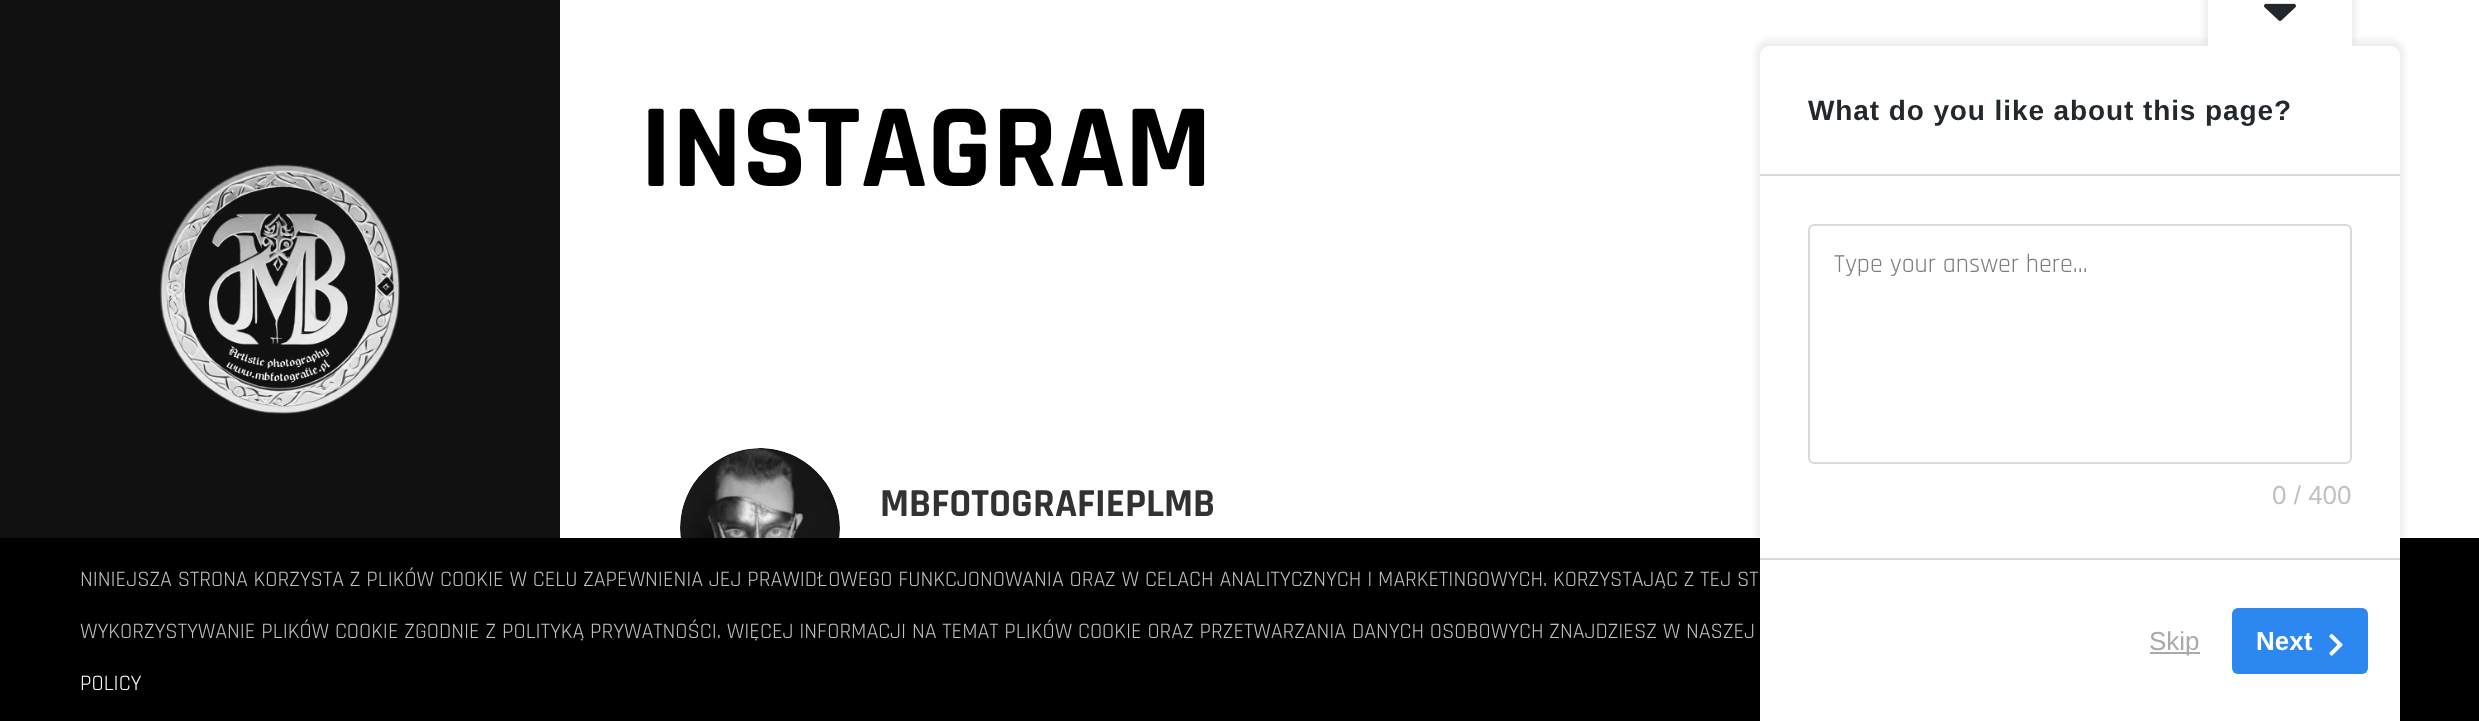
<!DOCTYPE html>
<meta charset="utf-8">
<style>body { margin: 0 } canvas { display: block }</style>
<canvas id="canvas" width="2479" height="721"></canvas>
<script type="module">
  const canvas = document.getElementById("canvas");
  const g = canvas.getContext("2d");
  g.miterLimit = 4;
  g.fontKerning = "normal";
  function drawText(s, x, y, [font, color]) {
    g.font = font;
    g.fillStyle = color;
    g.fillText(s, x, y);
  }
  function fillBox(x, y, w, h, color) {
    g.fillStyle = color;
    g.fillRect(x, y, w, h);
  }
  function fillRounded(x, y, w, h, r, color) {
    g.fillStyle = color;
    g.beginPath();
    g.roundRect(x, y, w, h, r);
    g.fill();
  }
  async function drawPicture(src, x, y, w, h) {
    const img = new Image();
    img.src = src;
    await img.decode();
    g.drawImage(img, x, y, w, h);
  }

  const s1 = ["bold 120px Rajdhani", "#000000"];
  const s2 = ["bold 40px Rajdhani", "#323232"];
  const s3 = ["22px Rajdhani", "#C1C1C1"];
  const s4 = ["22px Rajdhani", "#FFFFFF"];
  const s5 = ["bold 28px Liberation Sans", "#23282D"];
  const s6 = ["26px Rajdhani", "#7E7E7E"];
  const s7 = ["26px Liberation Sans", "#C1C1C1"];
  const s8 = ["26px Liberation Sans", "#AAAAAA"];
  const s9 = ["bold 26px Liberation Sans", "#FFFFFF"];

  fillBox(0, 0, 2479, 721, "#FFFFFF");
  fillBox(0, 0, 560, 538, "#111111");
  await drawPicture("pic1.png", 159, 164, 241, 250);
  drawText("INSTAGRAM", 640, 186, s1);
  await drawPicture("pic2.png", 680, 448, 160, 90);
  drawText("MBFOTOGRAFIEPLMB", 880, 516, s2);
  fillBox(0, 538, 2479, 183, "#000000");
  drawText("NINIEJSZA STRONA KORZYSTA Z PLIKÓW COOKIE W CELU ZAPEWNIENIA JEJ PRAWIDŁOWEGO FUNKCJONOWANIA ORAZ W CELACH ANALITYCZNYCH I MARKETINGOWYCH. KORZYSTAJĄC Z TEJ ST", 80, 586, s3);
  drawText("WYKORZYSTYWANIE PLIKÓW COOKIE ZGODNIE Z POLITYKĄ PRYWATNOŚCI. WIĘCEJ INFORMACJI NA TEMAT PLIKÓW COOKIE ORAZ PRZETWARZANIA DANYCH OSOBOWYCH ZNAJDZIESZ W NASZEJ", 80, 638, s3);
  drawText("POLICY", 80, 690, s4);
  g.fillStyle = "rgba(0, 0, 0, 0.07)";
  g.filter = "blur(3px)";
  g.beginPath();
  g.roundRect(1756, 40, 648, 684, 14);
  g.fill();
  g.filter = "none";
  g.fillStyle = "#FFFFFF";
  g.beginPath();
  g.moveTo(1770, 46);
  g.lineTo(2390, 46);
  g.bezierCurveTo(2395.5, 46, 2400, 50.5, 2400, 56);
  g.lineTo(2400, 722);
  g.lineTo(1760, 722);
  g.lineTo(1760, 56);
  g.bezierCurveTo(1760, 50.5, 1764.5, 46, 1770, 46);
  g.closePath();
  g.fill();
  g.save();
  g.beginPath();
  g.moveTo(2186.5, -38);
  g.lineTo(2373.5, -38);
  g.lineTo(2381, 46);
  g.lineTo(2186.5, 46);
  g.closePath();
  g.clip();
  g.fillStyle = "rgba(0, 0, 0, 0.07)";
  g.filter = "blur(3px)";
  g.beginPath();
  g.roundRect(2204, -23, 152, 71, 14);
  g.fill();
  g.filter = "none";
  g.restore();
  fillBox(2208, 0, 144, 46, "#FFFFFF");
  await drawPicture("pic3.png", 2264, 3, 32, 18);
  g.letterSpacing = "0.9px";
  drawText("What do you like about this page?", 1808, 120, s5);
  fillBox(1760, 174, 640, 2, "#D9D9D9");
  fillBox(1760, 558, 640, 2, "#D9D9D9");
  g.beginPath();
  g.roundRect(1809, 225, 542, 238, 5);
  g.strokeStyle = "#DADADA";
  g.lineWidth = 2;
  g.stroke();
  g.letterSpacing = "0px";
  drawText("Type your answer here...", 1834, 272, s6);
  drawText("0 / 400", 2272, 504, s7);
  fillBox(2150, 652, 50, 2, "#AAAAAA");
  drawText("Skip", 2149, 650, s8);
  fillRounded(2232, 608, 136, 66, 6, "#2D87F1");
  drawText("Next", 2256, 650, s9);
  await drawPicture("pic4.png", 2329, 633, 14, 23);
</script>
